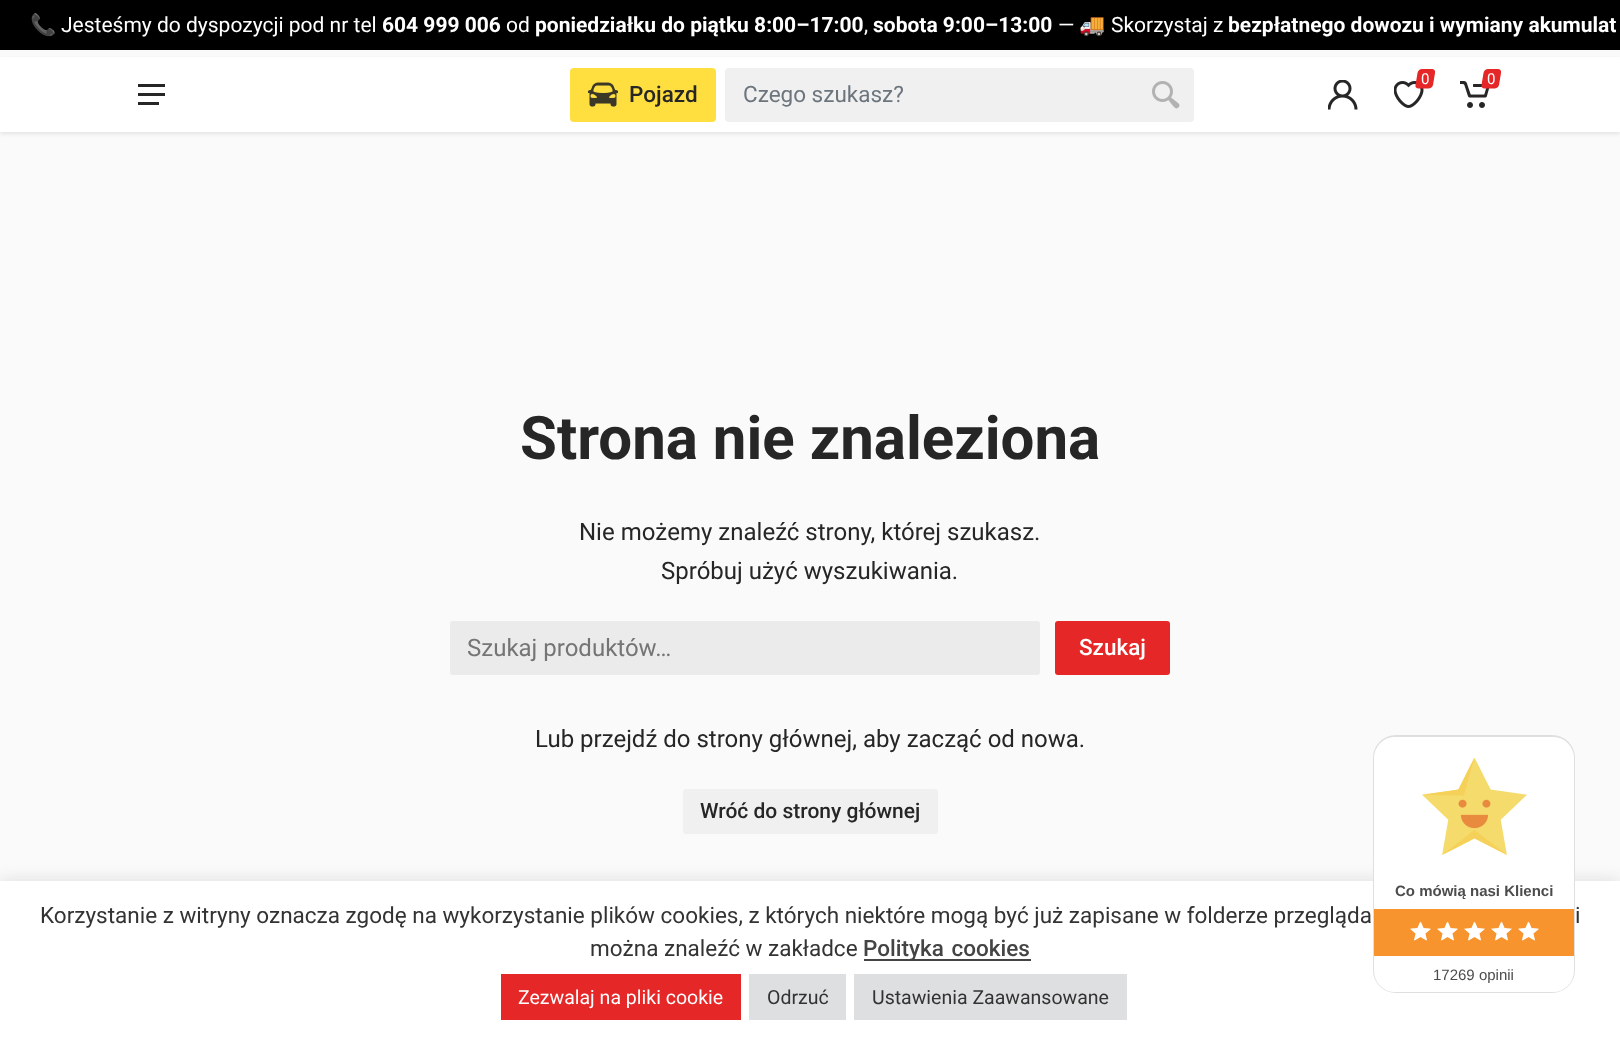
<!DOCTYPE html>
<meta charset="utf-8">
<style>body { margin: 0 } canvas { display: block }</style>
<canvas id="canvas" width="1620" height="1038"></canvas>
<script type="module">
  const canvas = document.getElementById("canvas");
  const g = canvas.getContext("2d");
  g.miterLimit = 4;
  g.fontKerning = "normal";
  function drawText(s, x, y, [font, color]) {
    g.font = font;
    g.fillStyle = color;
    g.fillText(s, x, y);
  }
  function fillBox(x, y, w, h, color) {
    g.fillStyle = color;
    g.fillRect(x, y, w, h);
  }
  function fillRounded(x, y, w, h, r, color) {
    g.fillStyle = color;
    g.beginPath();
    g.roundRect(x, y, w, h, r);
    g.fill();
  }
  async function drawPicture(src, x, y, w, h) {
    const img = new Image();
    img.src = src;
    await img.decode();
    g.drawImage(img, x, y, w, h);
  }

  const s1 = ["21px Noto Color Emoji", "#FFFFFF"];
  const s2 = ["21px Roboto", "#FFFFFF"];
  const s3 = ["bold 21px Roboto", "#FFFFFF"];
  const s4 = ["15px Roboto", "#FFFFFF"];
  const s5 = ["500 22.5px Roboto", "#262626"];
  const s6 = ["22.5px Roboto", "#6C757D"];
  const s7 = ["bold 60px Roboto", "#262626"];
  const s8 = ["24px Roboto", "#262626"];
  const s9 = ["24px Roboto", "#757575"];
  const s10 = ["500 22.5px Roboto", "#FFFFFF"];
  const s11 = ["500 21px Roboto", "#262626"];
  const s12 = ["bold 15px Liberation Sans", "#4C4C4C"];
  const s13 = ["15px Liberation Sans", "#4C4C4C"];
  const s14 = ["22.5px Roboto", "#333333"];
  const s15 = ["500 22.5px Roboto", "#444444"];
  const s16 = ["19.5px Roboto", "#FFFFFF"];
  const s17 = ["19.5px Roboto", "#333333"];

  fillBox(0, 0, 1620, 1038, "#FAFAFA");
  fillBox(0, 0, 1620, 50, "#000000");
  drawText("📞", 30, 32, s1);
  drawText("Jesteśmy do dyspozycji pod nr tel", 61, 32, s2);
  drawText("604 999 006", 382, 32, s3);
  drawText("od", 506, 32, s2);
  drawText("poniedziałku do piątku 8:00–17:00", 535, 32, s3);
  drawText("sobota 9:00–13:00", 873, 32, s3);
  drawText("—", 1058, 32, s2);
  drawText("🚚", 1079, 32, s1);
  drawText("Skorzystaj z", 1111, 32, s2);
  drawText("bezpłatnego dowozu i wymiany akumulat", 1228, 32, s3);
  drawText(",", 864, 32, s2);
  g.fillStyle = "rgba(0, 0, 0, 0.09)";
  g.filter = "blur(2px)";
  g.beginPath();
  g.rect(0, 59, 1620, 75);
  g.fill();
  g.filter = "none";
  fillBox(0, 57, 1620, 75, "#FFFFFF");
  await drawPicture("pic1.png", 1328, 80, 30, 30);
  await drawPicture("pic2.png", 1394, 81, 30, 27);
  g.fillStyle = "#E52727";
  g.beginPath();
  g.moveTo(1422, 69);
  g.lineTo(1432, 69);
  g.bezierCurveTo(1434, 69, 1435.5, 70.5, 1435, 73);
  g.lineTo(1433, 85);
  g.bezierCurveTo(1432.5, 87, 1430.5, 88.5, 1428.5, 88.5);
  g.lineTo(1418.5, 88.5);
  g.bezierCurveTo(1416.5, 88.5, 1415, 87, 1415.5, 85);
  g.lineTo(1417.5, 73);
  g.bezierCurveTo(1418, 70.5, 1420, 69, 1422, 69);
  g.closePath();
  g.fill();
  drawText("0", 1421, 84, s4);
  await drawPicture("pic3.png", 1460, 81, 30, 27);
  g.fillStyle = "#E52727";
  g.beginPath();
  g.moveTo(1488, 69);
  g.lineTo(1498, 69);
  g.bezierCurveTo(1500, 69, 1501.5, 70.5, 1501, 73);
  g.lineTo(1499, 85);
  g.bezierCurveTo(1498.5, 87, 1496.5, 88.5, 1494.5, 88.5);
  g.lineTo(1484.5, 88.5);
  g.bezierCurveTo(1482.5, 88.5, 1481, 87, 1481.5, 85);
  g.lineTo(1483.5, 73);
  g.bezierCurveTo(1484, 70.5, 1486, 69, 1488, 69);
  g.closePath();
  g.fill();
  drawText("0", 1487, 84, s4);
  await drawPicture("pic4.png", 138, 84, 27, 21);
  fillRounded(570, 68, 146, 54, 4, "#FFDF40");
  await drawPicture("pic5.png", 588, 82, 30, 25);
  drawText("Pojazd", 629, 102, s5);
  g.fillStyle = "#F0F0F0";
  g.beginPath();
  g.roundRect(726, 69, 467, 52, 3);
  g.fill();
  g.strokeStyle = "#F0F0F0";
  g.lineWidth = 2;
  g.stroke();
  drawText("Czego szukasz?", 743, 102, s6);
  await drawPicture("pic6.png", 1152, 81, 28, 28);
  drawText("Strona nie znaleziona", 520, 459, s7);
  drawText("Nie możemy znaleźć strony, której szukasz.", 579, 540, s8);
  drawText("Spróbuj użyć wyszukiwania.", 661, 579, s8);
  g.fillStyle = "#EBEBEB";
  g.beginPath();
  g.roundRect(451, 622, 588, 52, 2);
  g.fill();
  g.strokeStyle = "#EBEBEB";
  g.stroke();
  drawText("Szukaj produktów…", 467, 656, s9);
  fillRounded(1055, 621, 115, 54, 3, "#E52727");
  drawText("Szukaj", 1079, 655, s10);
  drawText("Lub przejdź do strony głównej, aby zacząć od nowa.", 535, 747, s8);
  fillRounded(683, 789, 255, 45, 3, "#F0F0F0");
  drawText("Wróć do strony głównej", 700, 818, s11);
  g.fillStyle = "rgba(172, 171, 171, 0.3)";
  g.filter = "blur(7.5px)";
  g.beginPath();
  g.rect(0, 879, 1620, 158);
  g.fill();
  g.filter = "none";
  fillBox(0, 881, 1620, 157, "#FFFFFF");
  g.beginPath();
  g.roundRect(1374, 736, 200, 256, 22);
  g.strokeStyle = "#DFDFDF";
  g.stroke();
  g.beginPath();
  g.roundRect(1374, 737, 200, 172, [21, 21, 0, 0]);
  g.fill();
  fillBox(1374, 909, 200, 47, "#F8942D");
  g.fillStyle = "#FFFFFF";
  g.beginPath();
  g.roundRect(1374, 956, 200, 36, [0, 0, 21, 21]);
  g.fill();
  await drawPicture("pic7.png", 1422, 758, 105, 97);
  drawText("Co mówią nasi Klienci", 1395, 896, s12);
  await drawPicture("pic8.png", 1410, 921, 21, 20);
  await drawPicture("pic9.png", 1410, 921, 21, 20);
  await drawPicture("pic8.png", 1437, 921, 21, 20);
  await drawPicture("pic9.png", 1437, 921, 21, 20);
  await drawPicture("pic8.png", 1464, 921, 21, 20);
  await drawPicture("pic9.png", 1464, 921, 21, 20);
  await drawPicture("pic8.png", 1491, 921, 21, 20);
  await drawPicture("pic9.png", 1491, 921, 21, 20);
  await drawPicture("pic8.png", 1518, 921, 21, 20);
  await drawPicture("pic9.png", 1518, 921, 21, 20);
  drawText("17269 opinii", 1433, 980, s13);
  drawText("Korzystanie z witryny oznacza zgodę na wykorzystanie plików cookies, z których niektóre mogą być już zapisane w folderze przegląda", 40, 923, s14);
  drawText("i", 1575, 923, s14);
  drawText("można znaleźć w zakładce", 590, 956, s14);
  fillBox(864, 959, 167, 2, "#444444");
  g.wordSpacing = "2px";
  drawText("Polityka cookies", 863, 956, s15);
  fillBox(501, 974, 240, 46, "#E52727");
  g.wordSpacing = "0px";
  drawText("Zezwalaj na pliki cookie", 518, 1004, s16);
  fillBox(749, 974, 97, 46, "#DEDFE0");
  drawText("Odrzuć", 767, 1004, s17);
  fillBox(854, 974, 273, 46, "#DEDFE0");
  drawText("Ustawienia Zaawansowane", 872, 1004, s17);
</script>
